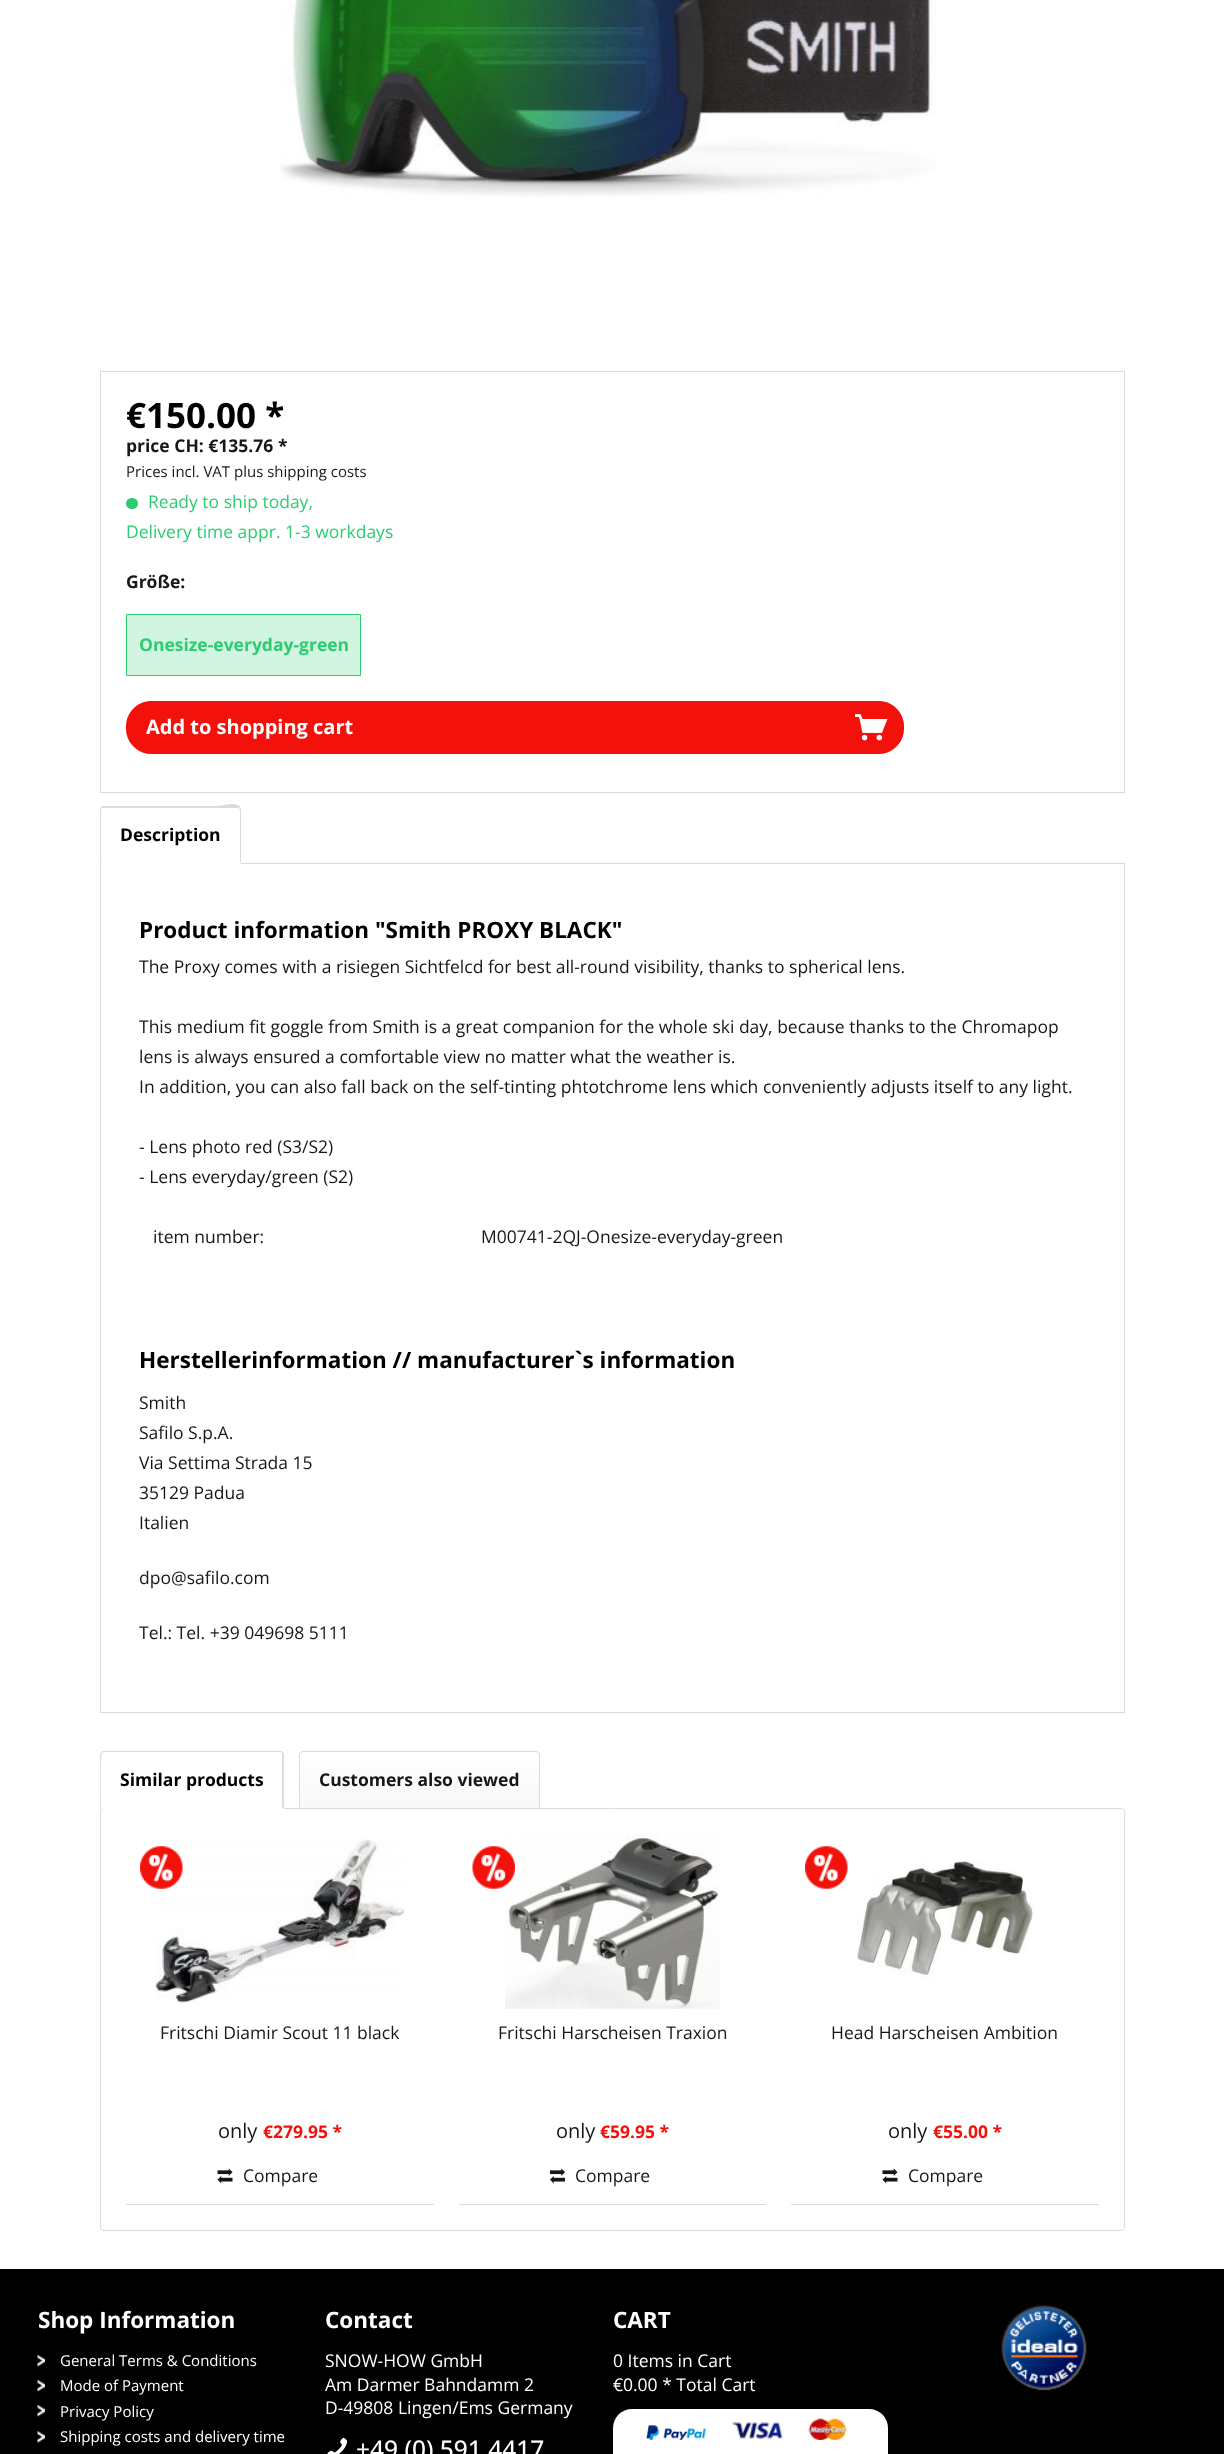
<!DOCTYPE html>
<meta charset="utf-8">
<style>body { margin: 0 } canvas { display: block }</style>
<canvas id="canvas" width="1224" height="2454"></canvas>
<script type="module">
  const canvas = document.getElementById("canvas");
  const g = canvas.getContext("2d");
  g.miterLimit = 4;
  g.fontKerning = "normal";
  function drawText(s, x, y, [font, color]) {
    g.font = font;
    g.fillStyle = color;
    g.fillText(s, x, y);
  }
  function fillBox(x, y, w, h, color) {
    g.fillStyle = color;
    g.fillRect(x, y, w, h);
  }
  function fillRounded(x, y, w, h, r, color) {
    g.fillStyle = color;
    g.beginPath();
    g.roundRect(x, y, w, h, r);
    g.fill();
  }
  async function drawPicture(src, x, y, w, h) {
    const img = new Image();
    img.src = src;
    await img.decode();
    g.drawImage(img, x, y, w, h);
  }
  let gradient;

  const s1 = ["bold 35px Open Sans", "#000000"];
  const s2 = ["bold 17.5px Open Sans", "#181717"];
  const s3 = ["15px Open Sans", "#181717"];
  const s4 = ["17.5px Open Sans", "#2ECC71"];
  const s5 = ["bold 17.5px Open Sans", "#2ECC71"];
  const s6 = ["bold 20px Open Sans", "#FFFFFF"];
  const s7 = ["bold 17.5px Open Sans", "#000000"];
  const s8 = ["bold 22.5px Open Sans", "#000000"];
  const s9 = ["17.5px Open Sans", "#181717"];
  const s10 = ["20px Open Sans", "#181717"];
  const s11 = ["bold 17.5px Open Sans", "#F2120B"];
  const s12 = ["bold 22.5px Open Sans", "#FFFFFF"];
  const s13 = ["15px Open Sans", "#FFFFFF"];
  const s14 = ["17.5px Open Sans", "#FFFFFF"];
  const s15 = ["500 24.5px Open Sans", "#FFFFFF"];

  fillBox(0, 0, 1224, 2454, "#FFFFFF");
  await drawPicture("pic1.png", 279, 0, 657, 197);
  g.strokeStyle = "#DADAE5";
  g.strokeRect(100.5, 371.5, 1024, 421);
  drawText("€150.00 *", 126, 428, s1);
  drawText("price CH: €135.76 *", 126, 452, s2);
  drawText("Prices incl. VAT plus shipping costs", 126, 477, s3);
  fillRounded(126, 498, 12, 11, 5.5, "#2ECC71");
  drawText("Ready to ship today,", 148, 508, s4);
  drawText("Delivery time appr. 1-3 workdays", 126, 538, s4);
  drawText("Größe:", 126, 588, s2);
  g.fillStyle = "#D1F5E0";
  g.beginPath();
  g.rect(126.5, 614.5, 234, 61);
  g.fill();
  g.strokeStyle = "#2ECC71";
  g.stroke();
  drawText("Onesize-everyday-green", 139, 651, s5);
  g.fillStyle = "#F2120B";
  g.beginPath();
  g.roundRect(126.5, 701.5, 777, 52, 24.5);
  g.fill();
  g.strokeStyle = "#F2120B";
  g.stroke();
  drawText("Add to shopping cart", 146, 734, s6);
  await drawPicture("pic2.png", 855, 714, 33, 27);
  g.strokeStyle = "#DADAE5";
  g.strokeRect(100.5, 863.5, 1024, 849);
  g.beginPath();
  g.roundRect(100, 806, 141, 58, [4, 4, 0, 0]);
  g.fill();
  g.fillStyle = "#DADAE5";
  g.beginPath();
  g.moveTo(104, 808);
  g.lineTo(102, 808);
  g.lineTo(101, 807);
  g.lineTo(103, 806);
  g.lineTo(216, 806);
  g.bezierCurveTo(224, 806, 236, 801, 240, 807);
  g.lineTo(239, 808);
  g.lineTo(238, 808);
  g.closePath();
  g.fill();
  g.beginPath();
  g.moveTo(240, 807);
  g.lineTo(241, 810);
  g.lineTo(241, 864);
  g.lineTo(240, 862);
  g.lineTo(240, 810);
  g.lineTo(239, 808);
  g.closePath();
  g.fill();
  g.fillStyle = "#FFFFFF";
  g.beginPath();
  g.moveTo(241, 864);
  g.lineTo(100, 864);
  g.lineTo(102, 862);
  g.lineTo(240, 862);
  g.closePath();
  g.fill();
  g.fillStyle = "#DADAE5";
  g.beginPath();
  g.moveTo(100, 864);
  g.lineTo(102, 862);
  g.lineTo(101, 862);
  g.lineTo(101, 810);
  g.lineTo(102, 808);
  g.lineTo(101, 807);
  g.lineTo(100, 810);
  g.closePath();
  g.fill();
  drawText("Description", 120, 841, s7);
  drawText("Product information \"Smith PROXY BLACK\"", 139, 938, s8);
  drawText("The Proxy comes with a risiegen Sichtfelcd for best all-round visibility, thanks to spherical lens.", 139, 973, s9);
  drawText("This medium fit goggle from Smith is a great companion for the whole ski day, because thanks to the Chromapop", 139, 1033, s9);
  drawText("lens is always ensured a comfortable view no matter what the weather is.", 139, 1063, s9);
  drawText("In addition, you can also fall back on the self-tinting phtotchrome lens which conveniently adjusts itself to any light.", 139, 1093, s9);
  drawText("- Lens photo red (S3/S2)", 139, 1153, s9);
  drawText("- Lens everyday/green (S2)", 139, 1183, s9);
  drawText("item number:", 153, 1243, s9);
  drawText("M00741-2QJ-Onesize-everyday-green", 481, 1243, s9);
  drawText("Herstellerinformation // manufacturer`s information", 139, 1368, s8);
  drawText("Smith", 139, 1409, s9);
  drawText("Safilo S.p.A.", 139, 1439, s9);
  drawText("Via Settima Strada 15", 139, 1469, s9);
  drawText("35129 Padua", 139, 1499, s9);
  drawText("Italien", 139, 1529, s9);
  drawText("dpo@safilo.com", 139, 1584, s9);
  drawText("Tel.: Tel. +39 049698 5111", 139, 1639, s9);
  g.beginPath();
  g.roundRect(100.5, 1808.5, 1024, 422, 3.5);
  g.stroke();
  g.fillStyle = "#FFFFFF";
  g.beginPath();
  g.roundRect(100, 1751, 184, 58, [4, 4, 0, 0]);
  g.fill();
  g.fillStyle = "#DADAE5";
  g.beginPath();
  g.moveTo(104, 1752);
  g.lineTo(102, 1753);
  g.lineTo(101, 1752);
  g.lineTo(103, 1751);
  g.lineTo(281, 1751);
  g.lineTo(283, 1752);
  g.lineTo(282, 1753);
  g.lineTo(280, 1752);
  g.closePath();
  g.fill();
  g.beginPath();
  g.moveTo(283, 1752);
  g.lineTo(284, 1754);
  g.lineTo(284, 1809);
  g.lineTo(282, 1807);
  g.lineTo(282, 1755);
  g.lineTo(282, 1753);
  g.closePath();
  g.fill();
  g.fillStyle = "#FFFFFF";
  g.beginPath();
  g.moveTo(284, 1809);
  g.lineTo(282, 1807);
  g.lineTo(282, 1808);
  g.lineTo(101, 1808);
  g.lineTo(100, 1809);
  g.closePath();
  g.fill();
  g.fillStyle = "#DADAE5";
  g.beginPath();
  g.moveTo(100, 1809);
  g.lineTo(101, 1808);
  g.bezierCurveTo(101, 1801, 100, 1755, 102, 1753);
  g.lineTo(101, 1752);
  g.lineTo(100, 1755);
  g.closePath();
  g.fill();
  drawText("Similar products", 120, 1786, s7);
  gradient = g.createLinearGradient(419, 1753, 419, 1808);
  gradient.addColorStop(0, "#FFFFFF");
  gradient.addColorStop(1, "#F8F8FA");
  g.fillStyle = gradient;
  g.beginPath();
  g.roundRect(300, 1753, 239, 55, [2.5, 2.5, 0, 0]);
  g.fill();
  g.beginPath();
  g.roundRect(299.5, 1751.5, 240, 57, [3.5, 3.5, 0, 0]);
  g.stroke();
  drawText("Customers also viewed", 319, 1786, s2);
  await drawPicture("pic4.png", 155, 1839, 250, 164);
  await drawPicture("pic3.png", 140, 1846, 43, 43);
  drawText("Fritschi Diamir Scout 11 black", 160, 2039, s9);
  drawText("only", 218, 2138, s10);
  drawText("€279.95 *", 263, 2138, s11);
  fillBox(126, 2204, 308, 1, "#DADAE5");
  await drawPicture("pic5.png", 217, 2168, 16, 16);
  drawText("Compare", 243, 2182, s9);
  await drawPicture("pic7.png", 505, 1834, 215, 175);
  await drawPicture("pic6.png", 472, 1846, 43, 43);
  drawText("Fritschi Harscheisen Traxion", 498, 2039, s9);
  drawText("only", 556, 2138, s10);
  drawText("€59.95 *", 600, 2138, s11);
  fillBox(459, 2204, 307, 1, "#DADAE5");
  await drawPicture("pic8.png", 550, 2168, 15, 16);
  drawText("Compare", 575, 2182, s9);
  await drawPicture("pic9.png", 805, 1846, 43, 43);
  await drawPicture("pic10.png", 857, 1861, 176, 118);
  drawText("Head Harscheisen Ambition", 831, 2039, s9);
  drawText("only", 888, 2138, s10);
  drawText("€55.00 *", 933, 2138, s11);
  fillBox(791, 2204, 308, 1, "#DADAE5");
  await drawPicture("pic5.png", 882, 2168, 16, 16);
  drawText("Compare", 908, 2182, s9);
  fillBox(0, 2269, 1224, 185, "#000000");
  drawText("Shop Information", 38, 2328, s12);
  await drawPicture("pic11.png", 37, 2355, 8, 12);
  drawText("General Terms & Conditions", 60, 2366, s13);
  await drawPicture("pic11.png", 37, 2380, 8, 12);
  drawText("Mode of Payment", 60, 2391, s13);
  await drawPicture("pic11.png", 37, 2405, 8, 12);
  drawText("Privacy Policy", 60, 2417, s13);
  await drawPicture("pic12.png", 37, 2431, 8, 12);
  drawText("Shipping costs and delivery time", 60, 2442, s13);
  drawText("Contact", 325, 2328, s12);
  drawText("SNOW-HOW GmbH", 325, 2367, s14);
  drawText("Am Darmer Bahndamm 2", 325, 2391, s14);
  drawText("D-49808 Lingen/Ems Germany", 325, 2414, s14);
  await drawPicture("pic13.png", 327, 2437, 20, 17);
  drawText("+49 (0) 591 4417", 356, 2458, s15);
  drawText("CART", 613, 2328, s12);
  drawText("0 Items in Cart", 613, 2367, s14);
  drawText("€0.00 * Total Cart", 613, 2391, s14);
  fillRounded(613, 2409, 275, 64, 19, "#FFFFFF");
  await drawPicture("pic14.png", 646, 2425, 61, 15);
  await drawPicture("pic15.png", 732, 2422, 52, 18);
  await drawPicture("pic16.png", 808, 2418, 39, 22);
  await drawPicture("pic17.png", 1001, 2305, 86, 86);
</script>
